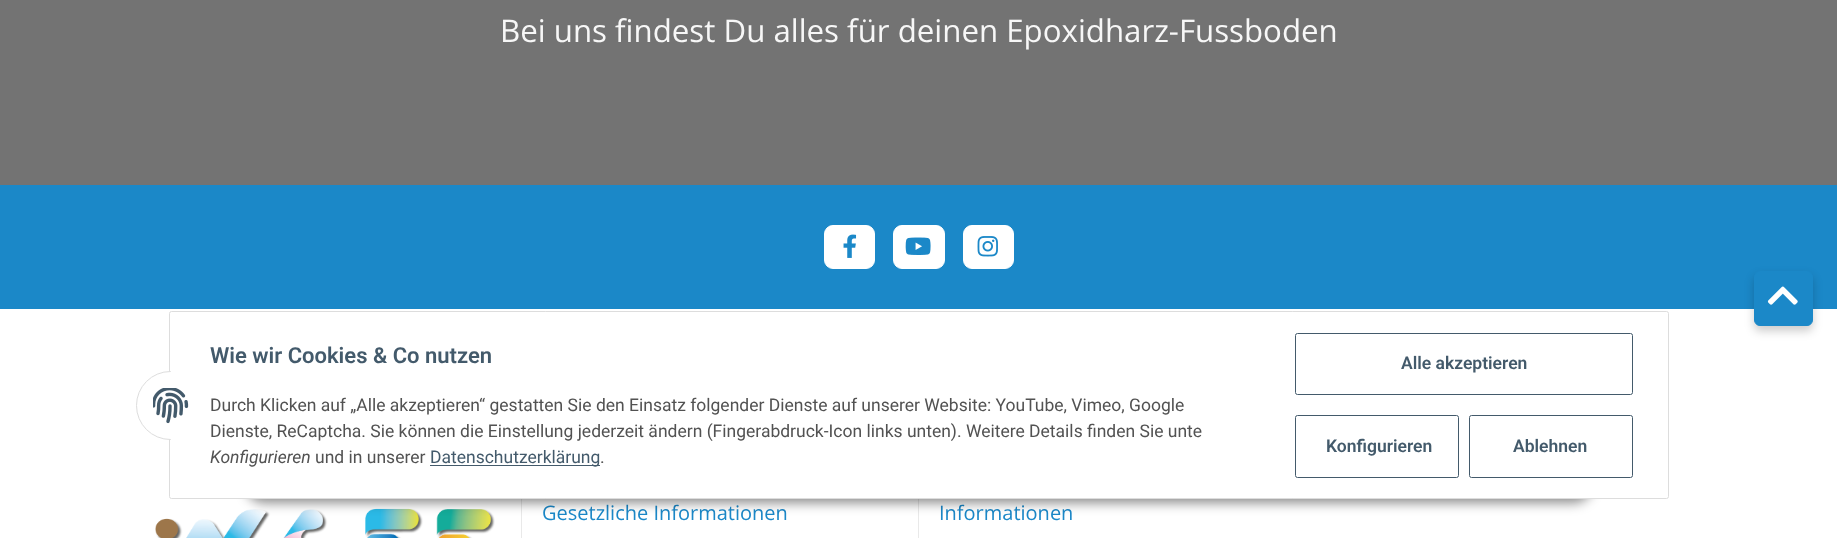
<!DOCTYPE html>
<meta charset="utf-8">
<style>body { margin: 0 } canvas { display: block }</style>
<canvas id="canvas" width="1837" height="538"></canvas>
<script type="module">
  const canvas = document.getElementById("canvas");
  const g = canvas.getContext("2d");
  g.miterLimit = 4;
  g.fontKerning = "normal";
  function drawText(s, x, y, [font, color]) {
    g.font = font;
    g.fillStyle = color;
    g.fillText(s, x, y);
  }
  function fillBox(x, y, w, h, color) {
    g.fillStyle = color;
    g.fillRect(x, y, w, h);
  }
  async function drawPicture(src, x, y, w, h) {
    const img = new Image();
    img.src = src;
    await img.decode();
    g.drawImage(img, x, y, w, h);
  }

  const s1 = ["31.25px Open Sans", "#F7F7F7"];
  const s2 = ["20px Open Sans", "#1B88C8"];
  const s3 = ["600 22px Roboto", "#435A6B"];
  const s4 = ["17.5px Roboto", "#525252"];
  const s5 = ["italic 17.5px Roboto", "#525252"];
  const s6 = ["17.5px Roboto", "#435A6B"];
  const s7 = ["600 17.5px Roboto", "#435A6B"];

  fillBox(0, 0, 1837, 538, "#FFFFFF");
  fillBox(0, 0, 1837, 185, "#737373");
  drawText("Bei uns findest Du alles für deinen Epoxidharz-Fussboden", 500, 42, s1);
  fillBox(0, 185, 1837, 124, "#1B88C8");
  g.fillStyle = "#FFFFFF";
  g.beginPath();
  g.roundRect(824.5, 225.5, 50, 43, 8.5);
  g.fill();
  g.strokeStyle = "#FFFFFF";
  g.stroke();
  await drawPicture("pic1.png", 843, 234, 14, 24);
  g.beginPath();
  g.roundRect(893.5, 225.5, 51, 43, 8.5);
  g.fill();
  g.stroke();
  await drawPicture("pic2.png", 905, 237, 26, 18);
  g.beginPath();
  g.roundRect(963.5, 225.5, 50, 43, 8.5);
  g.fill();
  g.stroke();
  await drawPicture("pic3.png", 977, 236, 21, 21);
  g.fillStyle = "rgba(0, 0, 0, 0.2)";
  g.filter = "blur(5px)";
  g.beginPath();
  g.roundRect(1754, 276, 59, 55, 6);
  g.fill();
  g.filter = "none";
  g.fillStyle = "#1B88C8";
  g.beginPath();
  g.roundRect(1754.5, 271.5, 58, 54, 5.5);
  g.fill();
  g.strokeStyle = "#1B88C8";
  g.stroke();
  await drawPicture("pic4.png", 1767, 286, 31, 19);
  fillBox(521, 499, 1, 39, "#E9E9E9");
  await drawPicture("pic5.png", 155, 508, 340, 30);
  fillBox(918, 499, 1, 39, "#E9E9E9");
  drawText("Gesetzliche Informationen", 542, 520, s2);
  drawText("Informationen", 939, 520, s2);
  g.fillStyle = "rgba(0, 0, 0, 0.45)";
  g.filter = "blur(6px)";
  g.beginPath();
  g.roundRect(245, 463, 1348, 40, 20);
  g.fill();
  g.filter = "none";
  g.fillStyle = "#FFFFFF";
  g.beginPath();
  g.roundRect(169.5, 311.5, 1499, 187, 2);
  g.fill();
  g.strokeStyle = "#DDDDDD";
  g.stroke();
  g.beginPath();
  g.arc(170.5, 405.5, 34, 0, Math.PI * 2);
  g.fill();
  g.stroke();
  fillBox(171, 371, 34, 69, "#FFFFFF");
  await drawPicture("pic6.png", 153, 388, 36, 36);
  drawText("Wie wir Cookies & Co nutzen", 210, 363, s3);
  drawText("Durch Klicken auf „Alle akzeptieren“ gestatten Sie den Einsatz folgender Dienste auf unserer Website: YouTube, Vimeo, Google", 210, 411, s4);
  drawText("Dienste, ReCaptcha. Sie können die Einstellung jederzeit ändern (Fingerabdruck-Icon links unten). Weitere Details finden Sie unte", 210, 437, s4);
  drawText("Konfigurieren", 210, 463, s5);
  drawText("und in unserer", 315, 463, s4);
  fillBox(430, 465, 170, 1, "#435A6B");
  drawText("Datenschutzerklärung", 430, 463, s6);
  drawText(".", 600, 463, s4);
  g.beginPath();
  g.roundRect(1295.5, 333.5, 337, 61, 2);
  g.strokeStyle = "#435A6B";
  g.stroke();
  drawText("Alle akzeptieren", 1401, 369, s7);
  g.beginPath();
  g.roundRect(1295.5, 415.5, 163, 62, 2);
  g.stroke();
  drawText("Konfigurieren", 1326, 452, s7);
  g.beginPath();
  g.roundRect(1469.5, 415.5, 163, 62, 2);
  g.stroke();
  drawText("Ablehnen", 1513, 452, s7);
</script>
